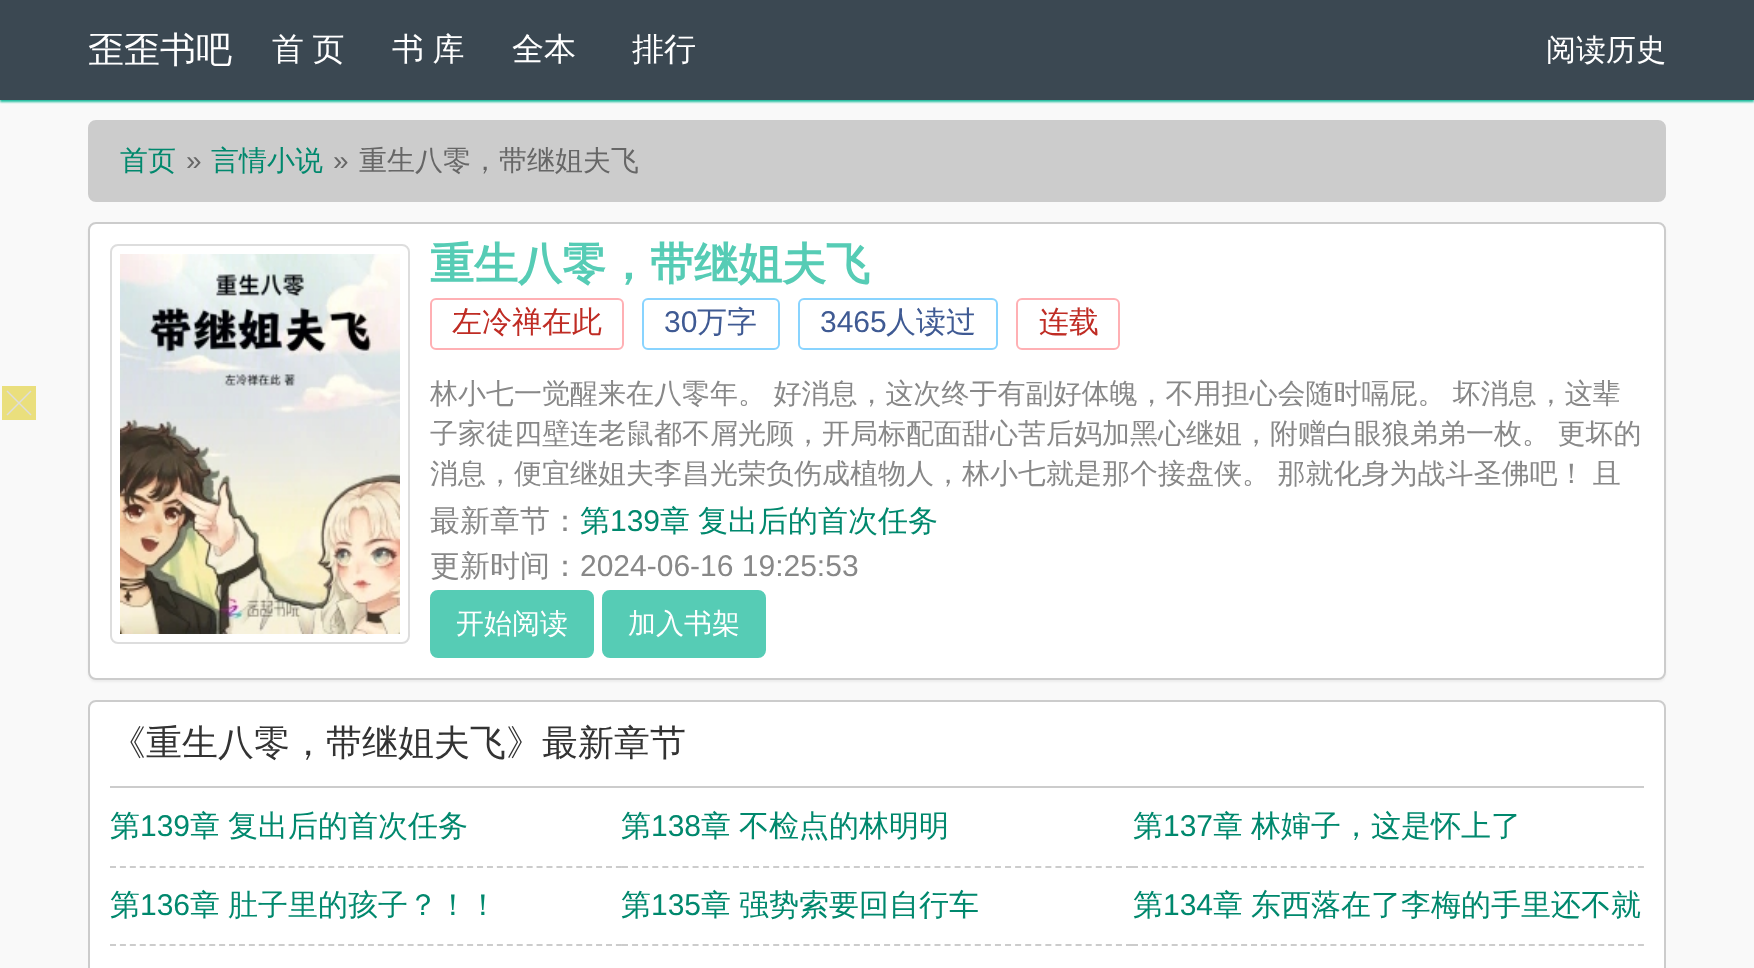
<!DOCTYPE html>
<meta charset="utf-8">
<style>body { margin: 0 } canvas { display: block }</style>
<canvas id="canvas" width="1754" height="968"></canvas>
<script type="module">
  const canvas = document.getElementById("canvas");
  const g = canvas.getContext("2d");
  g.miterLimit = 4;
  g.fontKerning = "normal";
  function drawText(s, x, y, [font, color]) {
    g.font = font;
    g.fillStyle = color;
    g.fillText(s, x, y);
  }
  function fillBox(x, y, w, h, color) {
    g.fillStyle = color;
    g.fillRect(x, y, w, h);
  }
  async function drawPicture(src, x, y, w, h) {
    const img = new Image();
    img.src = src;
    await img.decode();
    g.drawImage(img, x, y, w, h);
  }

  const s1 = ["500 36px WenQuanYi Zen Hei", "#FFFFFF"];
  const s2 = ["500 32px WenQuanYi Zen Hei", "#FFFFFF"];
  const s3 = ["500 30px WenQuanYi Zen Hei", "#FFFFFF"];
  const s4 = ["500 28px WenQuanYi Zen Hei", "#00886D"];
  const s5 = ["28px Liberation Sans", "#666666"];
  const s6 = ["500 28px WenQuanYi Zen Hei", "#666666"];
  const s7 = ["bold 44px WenQuanYi Zen Hei", "#56CCB5"];
  const s8 = ["500 30px WenQuanYi Zen Hei", "#BF2C24"];
  const s9 = ["30px Liberation Sans", "#3F5A93"];
  const s10 = ["500 30px WenQuanYi Zen Hei", "#3F5A93"];
  const s11 = ["500 28px WenQuanYi Zen Hei", "#888888"];
  const s12 = ["500 30px WenQuanYi Zen Hei", "#888888"];
  const s13 = ["500 30px WenQuanYi Zen Hei", "#00886D"];
  const s14 = ["30px Liberation Sans", "#00886D"];
  const s15 = ["30px Liberation Sans", "#888888"];
  const s16 = ["500 28px WenQuanYi Zen Hei", "#FFFFFF"];
  const s17 = ["500 36px WenQuanYi Zen Hei", "#333333"];

  fillBox(0, 0, 1754, 968, "#F9F9F9");
  g.fillStyle = "#1ABC9C";
  g.filter = "blur(1px)";
  g.beginPath();
  g.rect(0, 2, 1754, 100);
  g.fill();
  g.filter = "none";
  fillBox(0, 0, 1754, 100, "#3B4852");
  drawText("歪歪书吧", 88, 62, s1);
  g.wordSpacing = "-1px";
  drawText("首 页", 272, 60, s2);
  drawText("书 库", 392, 60, s2);
  g.wordSpacing = "0px";
  drawText("全本", 512, 60, s2);
  drawText("排行", 632, 60, s2);
  drawText("阅读历史", 1546, 60, s3);
  fillBox(2, 386, 34, 34, "#EADF7D");
  g.fillStyle = "#DDDDDD";
  g.beginPath();
  g.moveTo(7.5, 390.5);
  g.lineTo(31.5, 414.5);
  g.lineTo(30.5, 415.5);
  g.lineTo(6.5, 391.5);
  g.closePath();
  g.fill();
  g.beginPath();
  g.moveTo(6.5, 414.5);
  g.lineTo(30.5, 390.5);
  g.lineTo(31.5, 391.5);
  g.lineTo(7.5, 415.5);
  g.closePath();
  g.fill();
  g.fillStyle = "#CCCCCC";
  g.beginPath();
  g.roundRect(89, 121, 1576, 80, 7);
  g.fill();
  g.strokeStyle = "#CCCCCC";
  g.lineWidth = 2;
  g.stroke();
  drawText("首页", 120, 170, s4);
  drawText("»", 186, 170, s5);
  drawText("言情小说", 211, 170, s4);
  drawText("»", 333, 170, s5);
  drawText("重生八零，带继姐夫飞", 359, 170, s6);
  g.fillStyle = "rgba(0, 0, 0, 0.05)";
  g.filter = "blur(1px)";
  g.beginPath();
  g.roundRect(88, 224, 1578, 458, 8);
  g.fill();
  g.filter = "none";
  g.fillStyle = "#FFFFFF";
  g.beginPath();
  g.roundRect(89, 223, 1576, 456, 7);
  g.fill();
  g.stroke();
  g.beginPath();
  g.roundRect(111, 245, 298, 398, 7);
  g.strokeStyle = "#DDDDDD";
  g.stroke();
  await drawPicture("pic1.png", 120, 254, 280, 380);
  drawText("重生八零，带继姐夫飞", 430, 279, s7);
  g.beginPath();
  g.roundRect(431, 299, 192, 50, 5);
  g.strokeStyle = "#FFB0B4";
  g.stroke();
  drawText("左冷禅在此", 452, 332, s8);
  g.beginPath();
  g.roundRect(643, 299, 136, 50, 5);
  g.strokeStyle = "#89D4FF";
  g.stroke();
  drawText("30", 664, 332, s9);
  drawText("万字", 697, 332, s10);
  g.beginPath();
  g.roundRect(799, 299, 198, 50, 5);
  g.stroke();
  drawText("3465", 820, 332, s9);
  drawText("人读过", 886, 332, s10);
  g.beginPath();
  g.roundRect(1017, 299, 102, 50, 5);
  g.strokeStyle = "#FFB0B4";
  g.stroke();
  drawText("连载", 1039, 332, s8);
  g.wordSpacing = "-1px";
  drawText("林小七一觉醒来在八零年。 好消息，这次终于有副好体魄，不用担心会随时嗝屁。 坏消息，这辈", 430, 403, s11);
  drawText("子家徒四壁连老鼠都不屑光顾，开局标配面甜心苦后妈加黑心继姐，附赠白眼狼弟弟一枚。 更坏的", 430, 443, s11);
  drawText("消息，便宜继姐夫李昌光荣负伤成植物人，林小七就是那个接盘侠。 那就化身为战斗圣佛吧！ 且", 430, 483, s11);
  g.wordSpacing = "0px";
  drawText("最新章节：", 430, 531, s12);
  drawText("第", 580, 531, s13);
  drawText("139", 610, 531, s14);
  g.wordSpacing = "-1px";
  drawText("章 复出后的首次任务", 660, 531, s13);
  g.wordSpacing = "0px";
  drawText("更新时间：", 430, 576, s12);
  drawText("2024-06-16 19:25:53", 580, 576, s15);
  g.fillStyle = "#56CCB5";
  g.beginPath();
  g.roundRect(431, 591, 162, 66, 7);
  g.fill();
  g.strokeStyle = "#56CCB5";
  g.stroke();
  drawText("开始阅读", 456, 633, s16);
  g.fillStyle = "#56CCB5";
  g.beginPath();
  g.roundRect(603, 591, 162, 66, 7);
  g.fill();
  g.stroke();
  drawText("加入书架", 628, 633, s16);
  g.beginPath();
  g.roundRect(89, 701, 1576, 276, 7);
  g.fill();
  g.strokeStyle = "#CCCCCC";
  g.stroke();
  fillBox(110, 786, 1534, 2, "#CCCCCC");
  drawText("《重生八零，带继姐夫飞》最新章节", 110, 755, s17);
  g.beginPath();
  g.moveTo(110, 867);
  g.lineTo(622, 867);
  g.setLineDash([6, 3.92]);
  g.stroke();
  drawText("第", 110, 836, s13);
  drawText("139", 140, 836, s14);
  g.wordSpacing = "-1px";
  drawText("章 复出后的首次任务", 190, 836, s13);
  g.beginPath();
  g.moveTo(622, 867);
  g.lineTo(1132, 867);
  g.setLineDash([6, 4.08]);
  g.stroke();
  g.wordSpacing = "0px";
  drawText("第", 621, 836, s13);
  drawText("138", 651, 836, s14);
  g.wordSpacing = "-1px";
  drawText("章 不检点的林明明", 701, 836, s13);
  g.beginPath();
  g.moveTo(1132, 867);
  g.lineTo(1644, 867);
  g.setLineDash([6, 3.92]);
  g.stroke();
  g.wordSpacing = "0px";
  drawText("第", 1133, 836, s13);
  drawText("137", 1163, 836, s14);
  g.wordSpacing = "-1px";
  drawText("章 林婶子，这是怀上了", 1213, 836, s13);
  g.beginPath();
  g.moveTo(110, 945);
  g.lineTo(622, 945);
  g.stroke();
  g.wordSpacing = "0px";
  drawText("第", 110, 915, s13);
  drawText("136", 140, 915, s14);
  g.wordSpacing = "-1px";
  drawText("章 肚子里的孩子？！！", 190, 915, s13);
  g.beginPath();
  g.moveTo(622, 945);
  g.lineTo(1132, 945);
  g.setLineDash([6, 4.08]);
  g.stroke();
  g.wordSpacing = "0px";
  drawText("第", 621, 915, s13);
  drawText("135", 651, 915, s14);
  g.wordSpacing = "-1px";
  drawText("章 强势索要回自行车", 701, 915, s13);
  g.beginPath();
  g.moveTo(1132, 945);
  g.lineTo(1644, 945);
  g.setLineDash([6, 3.92]);
  g.stroke();
  g.wordSpacing = "0px";
  drawText("第", 1133, 915, s13);
  drawText("134", 1163, 915, s14);
  g.wordSpacing = "-1px";
  drawText("章 东西落在了李梅的手里还不就", 1213, 915, s13);
</script>
